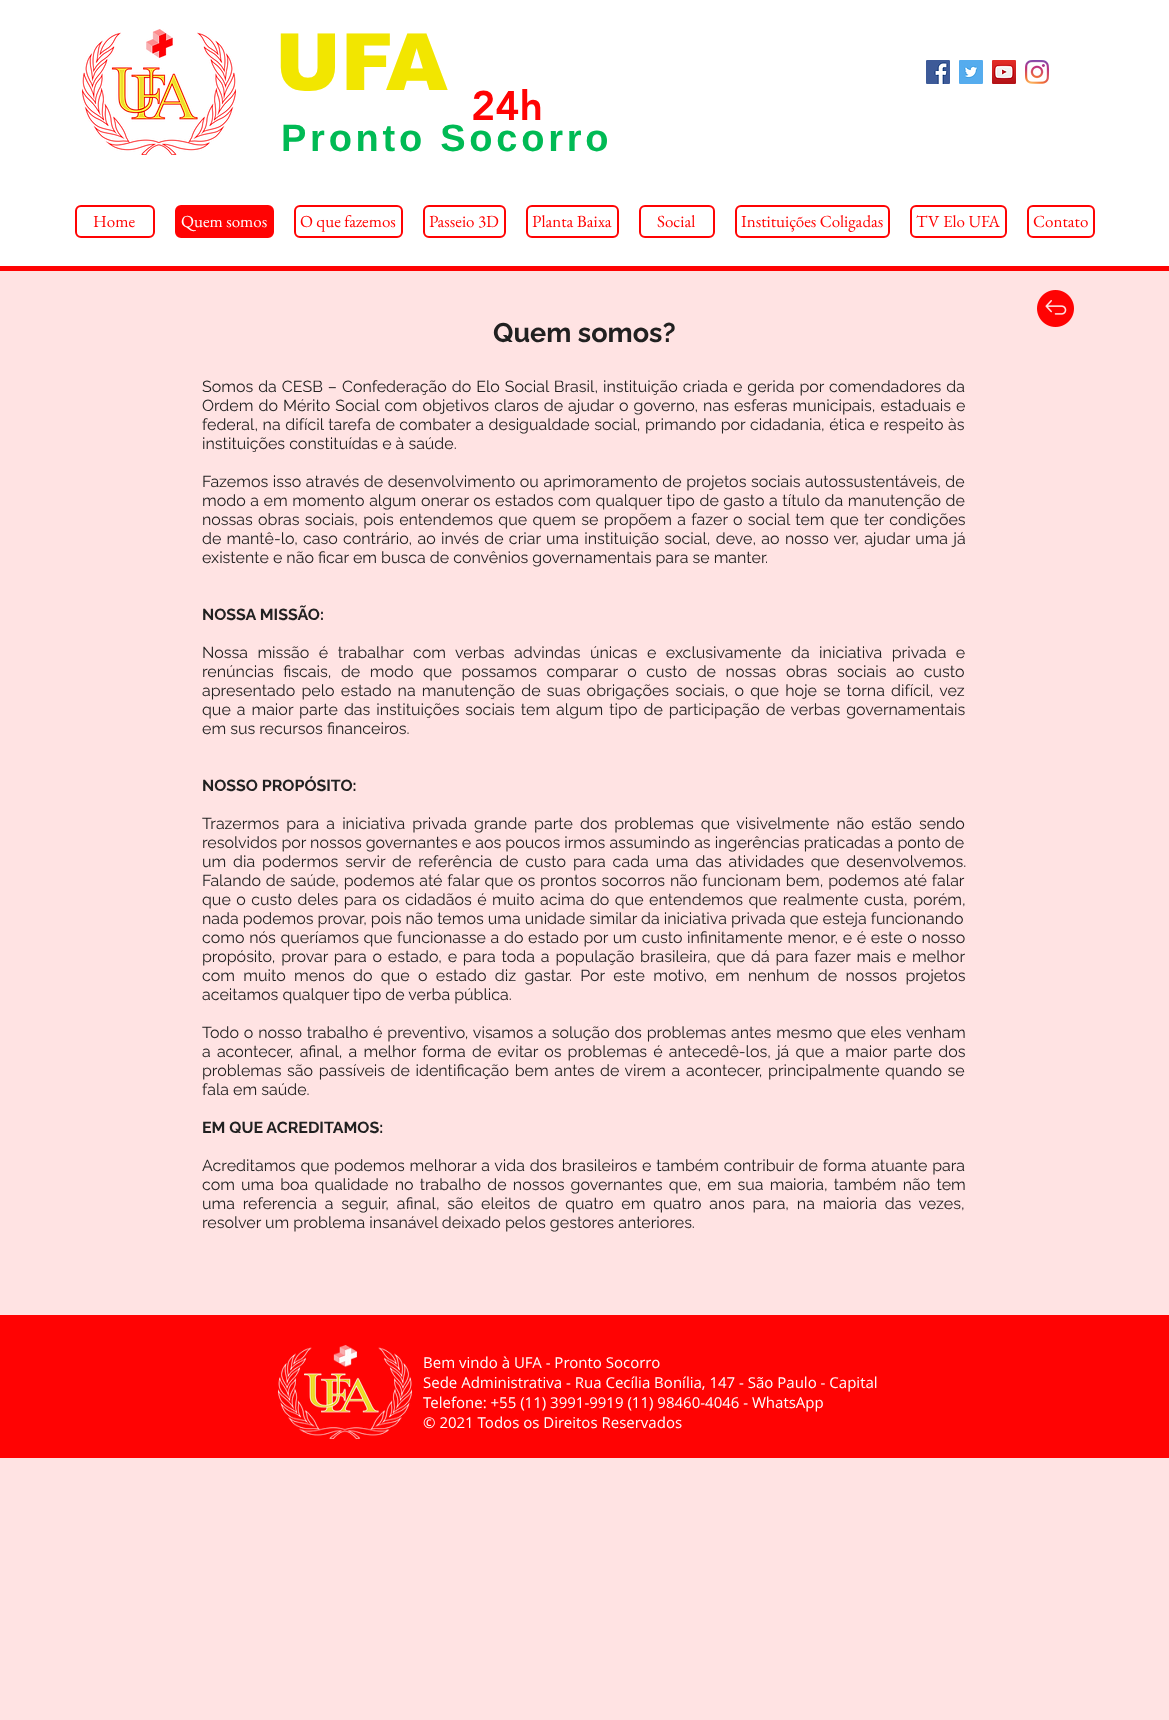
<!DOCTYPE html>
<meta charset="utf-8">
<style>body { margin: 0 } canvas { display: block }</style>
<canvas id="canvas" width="1169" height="1720"></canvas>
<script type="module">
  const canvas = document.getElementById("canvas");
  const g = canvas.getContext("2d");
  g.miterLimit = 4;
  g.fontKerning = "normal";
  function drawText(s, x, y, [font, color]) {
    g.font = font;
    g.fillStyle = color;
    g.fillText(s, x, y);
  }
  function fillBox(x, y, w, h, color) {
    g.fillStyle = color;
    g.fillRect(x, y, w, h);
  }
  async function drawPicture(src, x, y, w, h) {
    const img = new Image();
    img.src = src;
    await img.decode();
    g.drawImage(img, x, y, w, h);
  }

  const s1 = ["900 79px arial", "#F2E600"];
  const s2 = ["900 41px 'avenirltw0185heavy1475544'", "#FF0303"];
  const s3 = ["bold 38px Liberation Sans", "#00BA54"];
  const s4 = ["17px EB Garamond", "#FF0303"];
  const s5 = ["17px EB Garamond", "#FFFFFF"];
  const s6 = ["bold 27px Raleway", "#212121"];
  const s7 = ["16px Raleway", "#212121"];
  const s8 = ["bold 16px Raleway", "#212121"];
  const s9 = ["15px Open Sans", "#FFFFFF"];

  fillBox(0, 0, 1169, 1720, "#FFE3E3");
  fillBox(0, 0, 1169, 266, "#FFFFFF");
  fillBox(0, 266, 1169, 5, "#FF0303");
  await drawPicture("pic1.png", 82, 29, 154, 126);
  drawText("UFA", 275, 90, s1);
  await drawPicture("pic2.png", 926, 60, 24, 24);
  await drawPicture("pic3.png", 959, 60, 24, 24);
  await drawPicture("pic4.png", 992, 60, 24, 24);
  await drawPicture("pic5.png", 1025, 60, 24, 24);
  drawText("24h", 471, 120, s2);
  g.letterSpacing = "3.75px";
  drawText("Pronto Socorro", 281, 151, s3);
  g.beginPath();
  g.roundRect(76, 206, 78, 31, 5);
  g.strokeStyle = "#FF0303";
  g.lineWidth = 2;
  g.stroke();
  g.letterSpacing = "0px";
  drawText("Home", 93, 227, s4);
  g.beginPath();
  g.roundRect(176, 206, 97, 31, 5);
  g.fill();
  g.stroke();
  drawText("Quem somos", 181, 227, s5);
  g.beginPath();
  g.roundRect(295, 206, 107, 31, 5);
  g.stroke();
  drawText("O que fazemos", 300, 227, s4);
  g.beginPath();
  g.roundRect(424, 206, 81, 31, 5);
  g.stroke();
  drawText("Passeio 3D", 429, 227, s4);
  g.beginPath();
  g.roundRect(527, 206, 91, 31, 5);
  g.stroke();
  drawText("Planta Baixa", 532, 227, s4);
  g.beginPath();
  g.roundRect(640, 206, 74, 31, 5);
  g.stroke();
  drawText("Social", 657, 227, s4);
  g.beginPath();
  g.roundRect(736, 206, 153, 31, 5);
  g.stroke();
  drawText("Instituições Coligadas", 741, 227, s4);
  g.beginPath();
  g.roundRect(911, 206, 95, 31, 5);
  g.stroke();
  drawText("TV Elo UFA", 916, 227, s4);
  g.beginPath();
  g.roundRect(1028, 206, 66, 31, 5);
  g.stroke();
  drawText("Contato", 1033, 227, s4);
  await drawPicture("pic6.png", 1037, 290, 37, 37);
  drawText("Quem somos?", 493, 342, s6);
  g.wordSpacing = "0.9px";
  drawText("Somos da CESB – Confederação do Elo Social Brasil, instituição criada e gerida por comendadores da", 202, 392, s7);
  g.wordSpacing = "1px";
  drawText("Ordem do Mérito Social com objetivos claros de ajudar o governo, nas esferas municipais, estaduais e", 202, 411, s7);
  g.wordSpacing = "0.5px";
  drawText("federal, na difícil tarefa de combater a desigualdade social, primando por cidadania, ética e respeito às", 202, 430, s7);
  g.wordSpacing = "0px";
  drawText("instituições constituídas e à saúde.", 202, 449, s7);
  g.wordSpacing = "0.5px";
  drawText("Fazemos isso através de desenvolvimento ou aprimoramento de projetos sociais autossustentáveis, de", 202, 487, s7);
  drawText("modo a em momento algum onerar os estados com qualquer tipo de gasto a título da manutenção de", 202, 506, s7);
  g.wordSpacing = "1.25px";
  drawText("nossas obras sociais, pois entendemos que quem se propõem a fazer o social tem que ter condições", 202, 525, s7);
  g.wordSpacing = "1.2px";
  drawText("de mantê-lo, caso contrário, ao invés de criar uma instituição social, deve, ao nosso ver, ajudar uma já", 202, 544, s7);
  g.wordSpacing = "0px";
  drawText("existente e não ficar em busca de convênios governamentais para se manter.", 202, 563, s7);
  drawText("NOSSA MISSÃO:", 202, 620, s8);
  g.wordSpacing = "5.4px";
  drawText("Nossa missão é trabalhar com verbas advindas únicas e exclusivamente da iniciativa privada e", 202, 658, s7);
  g.wordSpacing = "5.5px";
  drawText("renúncias fiscais, de modo que possamos comparar o custo de nossas obras sociais ao custo", 202, 677, s7);
  g.wordSpacing = "2.1px";
  drawText("apresentado pelo estado na manutenção de suas obrigações sociais, o que hoje se torna difícil, vez", 202, 696, s7);
  g.wordSpacing = "1.9px";
  drawText("que a maior parte das instituições sociais tem algum tipo de participação de verbas governamentais", 202, 715, s7);
  g.wordSpacing = "0px";
  drawText("em sus recursos financeiros.", 202, 734, s7);
  drawText("NOSSO PROPÓSITO:", 202, 791, s8);
  g.wordSpacing = "3px";
  drawText("Trazermos para a iniciativa privada grande parte dos problemas que visivelmente não estão sendo", 202, 829, s7);
  g.wordSpacing = "0px";
  drawText("resolvidos por nossos governantes e aos poucos irmos assumindo as ingerências praticadas a ponto de", 202, 848, s7);
  g.wordSpacing = "2.75px";
  drawText("um dia podermos servir de referência de custo para cada uma das atividades que desenvolvemos.", 202, 867, s7);
  g.wordSpacing = "0.75px";
  drawText("Falando de saúde, podemos até falar que os prontos socorros não funcionam bem, podemos até falar", 202, 886, s7);
  g.wordSpacing = "1.4px";
  drawText("que o custo deles para os cidadãos é muito acima do que entendemos que realmente custa, porém,", 202, 905, s7);
  g.wordSpacing = "0px";
  drawText("nada podemos provar, pois não temos uma unidade similar da iniciativa privada que esteja funcionando", 202, 924, s7);
  g.wordSpacing = "0.6px";
  drawText("como nós queríamos que funcionasse a do estado por um custo infinitamente menor, e é este o nosso", 202, 943, s7);
  g.wordSpacing = "1.75px";
  drawText("propósito, provar para o estado, e para toda a população brasileira, que dá para fazer mais e melhor", 202, 962, s7);
  g.wordSpacing = "4.25px";
  drawText("com muito menos do que o estado diz gastar. Por este motivo, em nenhum de nossos projetos", 202, 981, s7);
  g.wordSpacing = "0px";
  drawText("aceitamos qualquer tipo de verba pública.", 202, 1000, s7);
  g.wordSpacing = "0.75px";
  drawText("Todo o nosso trabalho é preventivo, visamos a solução dos problemas antes mesmo que eles venham", 202, 1038, s7);
  g.wordSpacing = "2.1px";
  drawText("a acontecer, afinal, a melhor forma de evitar os problemas é antecedê-los, já que a maior parte dos", 202, 1057, s7);
  g.wordSpacing = "1.5px";
  drawText("problemas são passíveis de identificação bem antes de virem a acontecer, principalmente quando se", 202, 1076, s7);
  g.wordSpacing = "0px";
  drawText("fala em saúde.", 202, 1095, s7);
  drawText("EM QUE ACREDITAMOS:", 202, 1133, s8);
  g.wordSpacing = "0.75px";
  drawText("Acreditamos que podemos melhorar a vida dos brasileiros e também contribuir de forma atuante para", 202, 1171, s7);
  g.wordSpacing = "2.1px";
  drawText("com uma boa qualidade no trabalho de nossos governantes que, em sua maioria, também não tem", 202, 1190, s7);
  g.wordSpacing = "3.75px";
  drawText("uma referencia a seguir, afinal, são eleitos de quatro em quatro anos para, na maioria das vezes,", 202, 1209, s7);
  g.wordSpacing = "0px";
  drawText("resolver um problema insanável deixado pelos gestores anteriores.", 202, 1228, s7);
  fillBox(0, 1315, 1169, 143, "#FF0303");
  await drawPicture("pic7.png", 278, 1345, 134, 94);
  drawText("Bem vindo à UFA - Pronto Socorro", 423, 1368, s9);
  drawText("Sede Administrativa - Rua Cecília Bonília, 147 - São Paulo - Capital", 423, 1388, s9);
  drawText("Telefone: +55 (11) 3991-9919 (11) 98460-4046 - WhatsApp", 423, 1408, s9);
  drawText("© 2021 Todos os Direitos Reservados", 423, 1428, s9);
</script>
